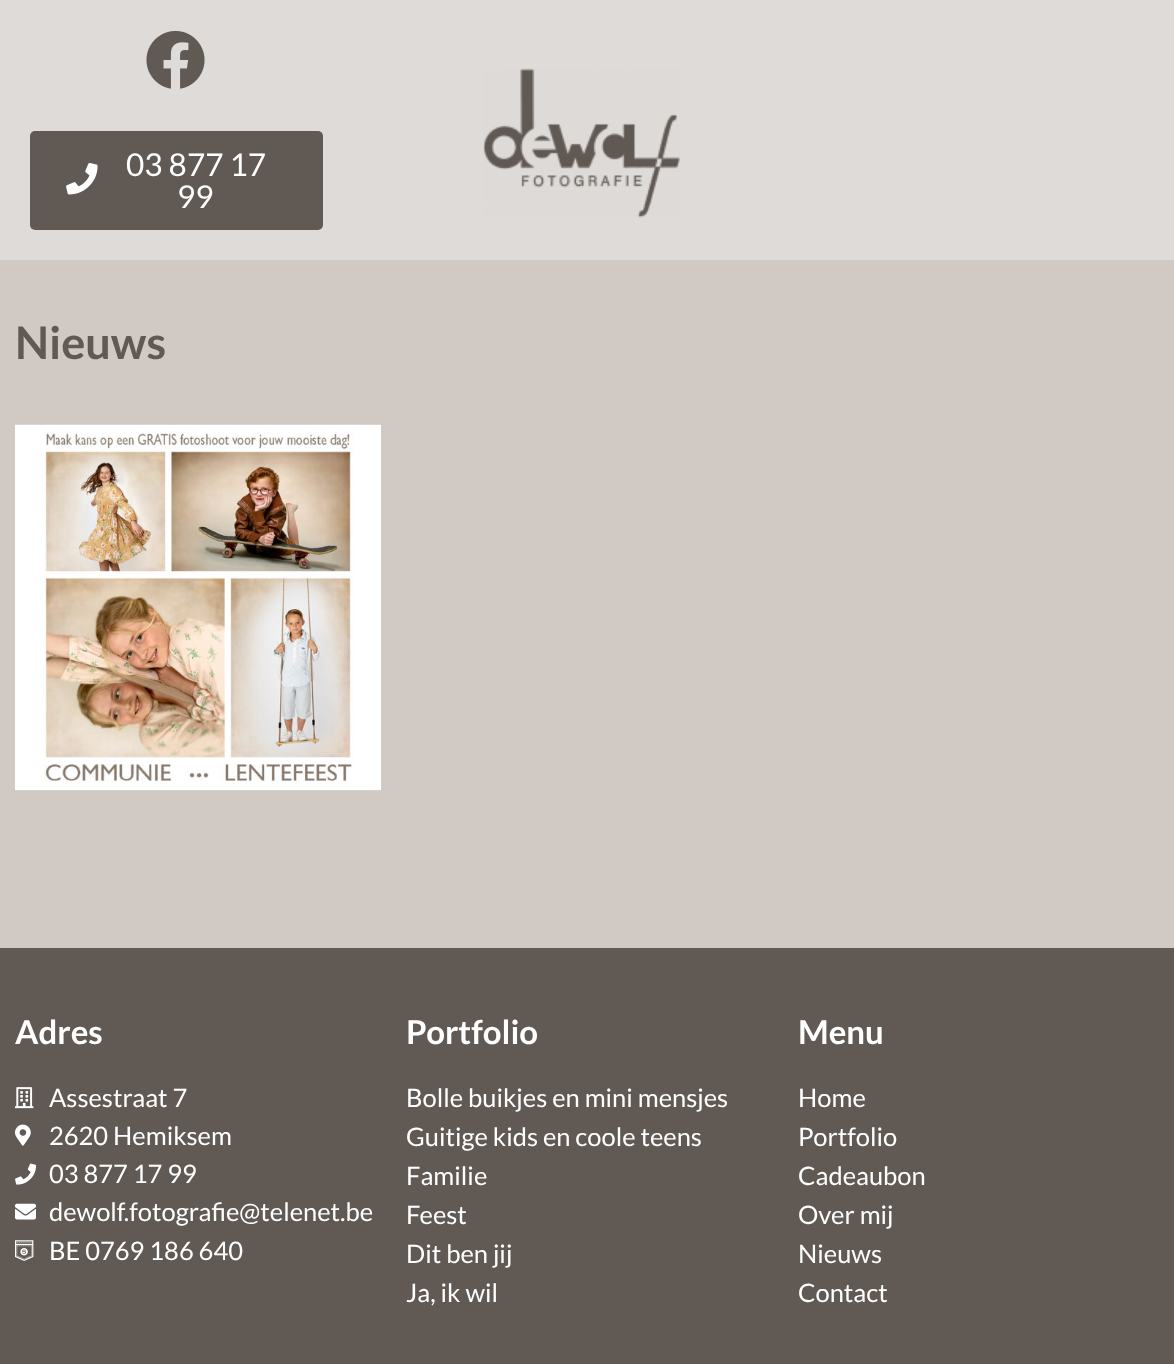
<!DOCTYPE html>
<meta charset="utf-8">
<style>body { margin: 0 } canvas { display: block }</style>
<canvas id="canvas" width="1174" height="1364"></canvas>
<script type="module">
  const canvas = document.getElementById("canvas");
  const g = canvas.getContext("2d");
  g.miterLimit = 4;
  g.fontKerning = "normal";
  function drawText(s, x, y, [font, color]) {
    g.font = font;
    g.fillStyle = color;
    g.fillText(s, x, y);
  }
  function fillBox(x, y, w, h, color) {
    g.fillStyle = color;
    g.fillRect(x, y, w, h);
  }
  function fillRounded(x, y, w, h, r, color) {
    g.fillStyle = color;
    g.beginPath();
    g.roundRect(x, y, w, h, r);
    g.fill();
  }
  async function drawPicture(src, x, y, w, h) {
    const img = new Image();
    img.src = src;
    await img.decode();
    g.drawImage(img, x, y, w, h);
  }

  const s1 = ["31.5px Lato", "#FFFFFF"];
  const s2 = ["bold 45px Lato", "#615A54"];
  const s3 = ["bold 33px Lato", "#FFFFFF"];
  const s4 = ["25.5px Lato", "#FFFFFF"];

  fillBox(0, 0, 1174, 1364, "#D1CAC4");
  fillBox(0, 0, 1174, 260, "#DFDBD8");
  await drawPicture("pic1.png", 146, 30, 59, 59);
  fillRounded(30, 131, 293, 99, 5, "#615A54");
  await drawPicture("pic2.png", 66, 162, 32, 33);
  drawText("03 877 17", 126, 176, s1);
  drawText("99", 177, 208, s1);
  await drawPicture("pic3.png", 483, 68, 197, 150);
  drawText("Nieuws", 15, 359, s2);
  await drawPicture("pic4.png", 15, 424, 366, 367);
  fillBox(0, 948, 1174, 416, "#615A54");
  drawText("Adres", 15, 1044, s3);
  await drawPicture("pic5.png", 15, 1087, 19, 22);
  drawText("Assestraat 7", 49, 1107, s4);
  await drawPicture("pic6.png", 15, 1124, 16, 22);
  drawText("2620 Hemiksem", 49, 1145, s4);
  await drawPicture("pic7.png", 15, 1163, 21, 22);
  drawText("03 877 17 99", 49, 1183, s4);
  await drawPicture("pic8.png", 15, 1203, 21, 17);
  drawText("dewolf.fotografie@telenet.be", 49, 1221, s4);
  await drawPicture("pic9.png", 15, 1240, 19, 21);
  drawText("BE 0769 186 640", 49, 1260, s4);
  drawText("Portfolio", 406, 1044, s3);
  drawText("Bolle buikjes en mini mensjes", 406, 1107, s4);
  drawText("Guitige kids en coole teens", 406, 1146, s4);
  drawText("Familie", 406, 1185, s4);
  drawText("Feest", 406, 1224, s4);
  drawText("Dit ben jij", 406, 1263, s4);
  drawText("Ja, ik wil", 406, 1302, s4);
  drawText("Menu", 798, 1044, s3);
  drawText("Home", 798, 1107, s4);
  drawText("Portfolio", 798, 1146, s4);
  drawText("Cadeaubon", 798, 1185, s4);
  drawText("Over mij", 798, 1224, s4);
  drawText("Nieuws", 798, 1263, s4);
  drawText("Contact", 798, 1302, s4);
</script>
